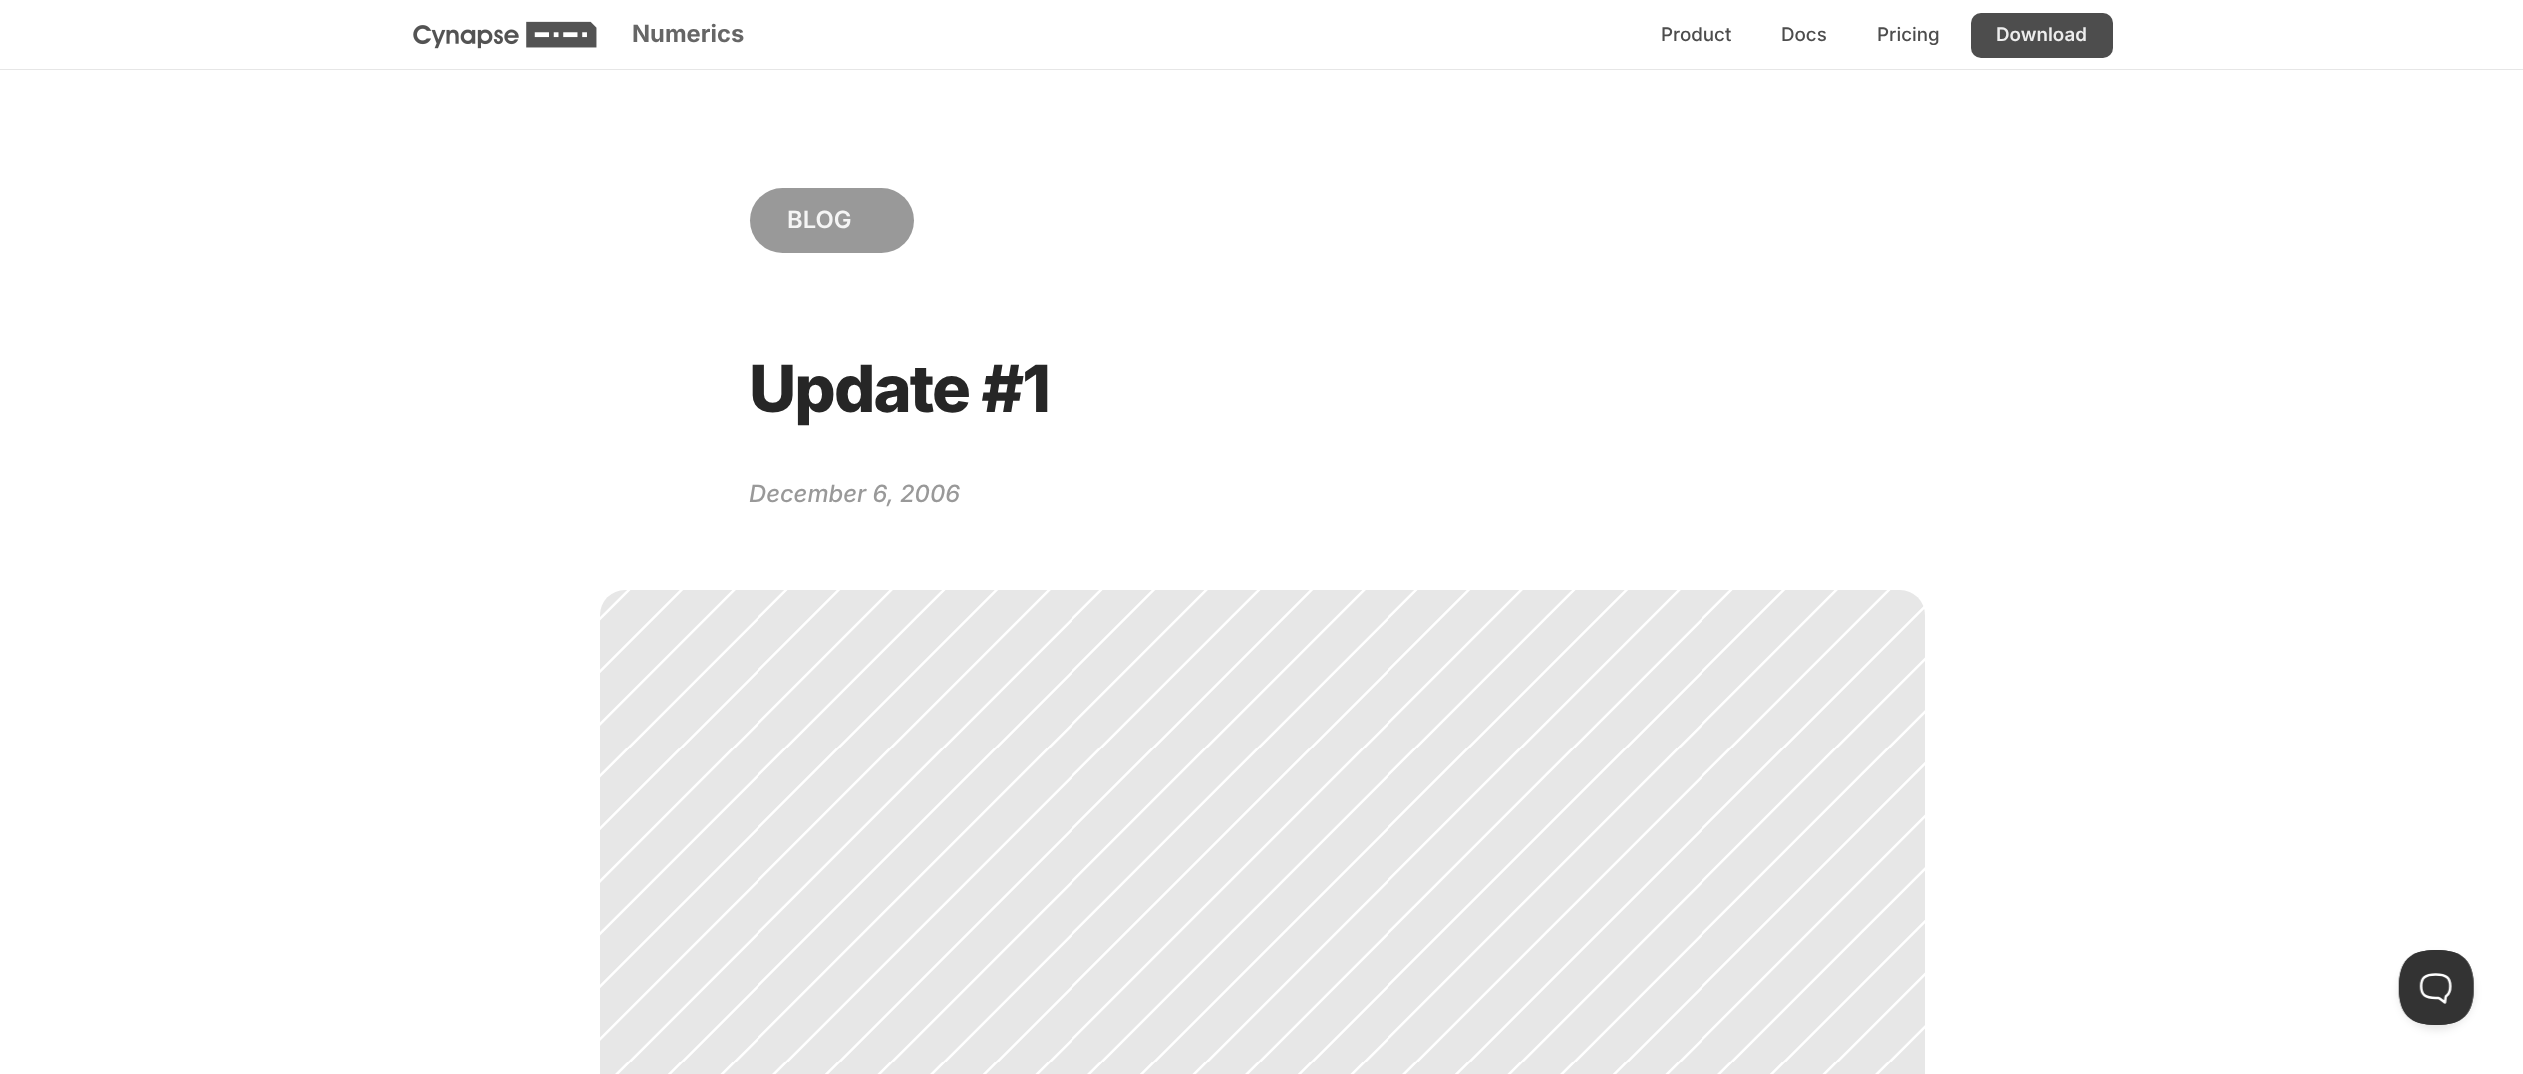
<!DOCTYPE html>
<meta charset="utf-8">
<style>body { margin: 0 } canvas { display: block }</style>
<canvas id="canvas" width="2523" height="1074"></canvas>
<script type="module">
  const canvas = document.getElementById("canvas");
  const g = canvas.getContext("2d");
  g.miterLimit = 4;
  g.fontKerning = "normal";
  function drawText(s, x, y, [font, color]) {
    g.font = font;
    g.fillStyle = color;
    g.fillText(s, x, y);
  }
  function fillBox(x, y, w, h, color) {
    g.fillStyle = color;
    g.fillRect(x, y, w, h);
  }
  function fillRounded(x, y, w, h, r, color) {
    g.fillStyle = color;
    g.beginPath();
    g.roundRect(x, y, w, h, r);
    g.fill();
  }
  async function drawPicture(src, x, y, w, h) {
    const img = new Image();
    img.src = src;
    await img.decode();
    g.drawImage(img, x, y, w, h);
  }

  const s1 = ["bold 23.75px Inter", "#666666"];
  const s2 = ["500 18.75px Inter", "#4D4D4D"];
  const s3 = ["600 18.75px Inter", "#EDEDED"];
  const s4 = ["600 23.75px Inter", "#F5F5F5"];
  const s5 = ["800 65px Inter", "#262626"];
  const s6 = ["italic 500 23.75px Inter", "#999999"];

  fillBox(0, 0, 2523, 1074, "#FFFFFF");
  await drawPicture("pic1.png", 413, 21, 184, 28);
  drawText("Numerics", 632, 42, s1);
  drawText("Product", 1661, 41, s2);
  drawText("Docs", 1781, 41, s2);
  drawText("Pricing", 1877, 41, s2);
  fillRounded(1971, 13, 142, 45, 10, "#4D4D4D");
  drawText("Download", 1996, 41, s3);
  fillBox(0, 69, 2523, 1, "#E6E6E6");
  fillRounded(750, 188, 164, 65, 32.5, "#999999");
  drawText("BLOG", 787, 228, s4);
  g.letterSpacing = "-1.9px";
  drawText("Update #1", 749, 412, s5);
  g.letterSpacing = "0px";
  drawText("December 6, 2006", 749, 502, s6);
  await drawPicture("pic2.png", 600, 590, 1325, 484);
  g.fillStyle = "rgba(0, 0, 0, 0.1)";
  g.filter = "blur(4.5px)";
  g.beginPath();
  g.roundRect(2399, 955, 75, 75, 37.5);
  g.fill();
  g.filter = "none";
  await drawPicture("pic3.png", 2398, 950, 76, 75);
</script>
